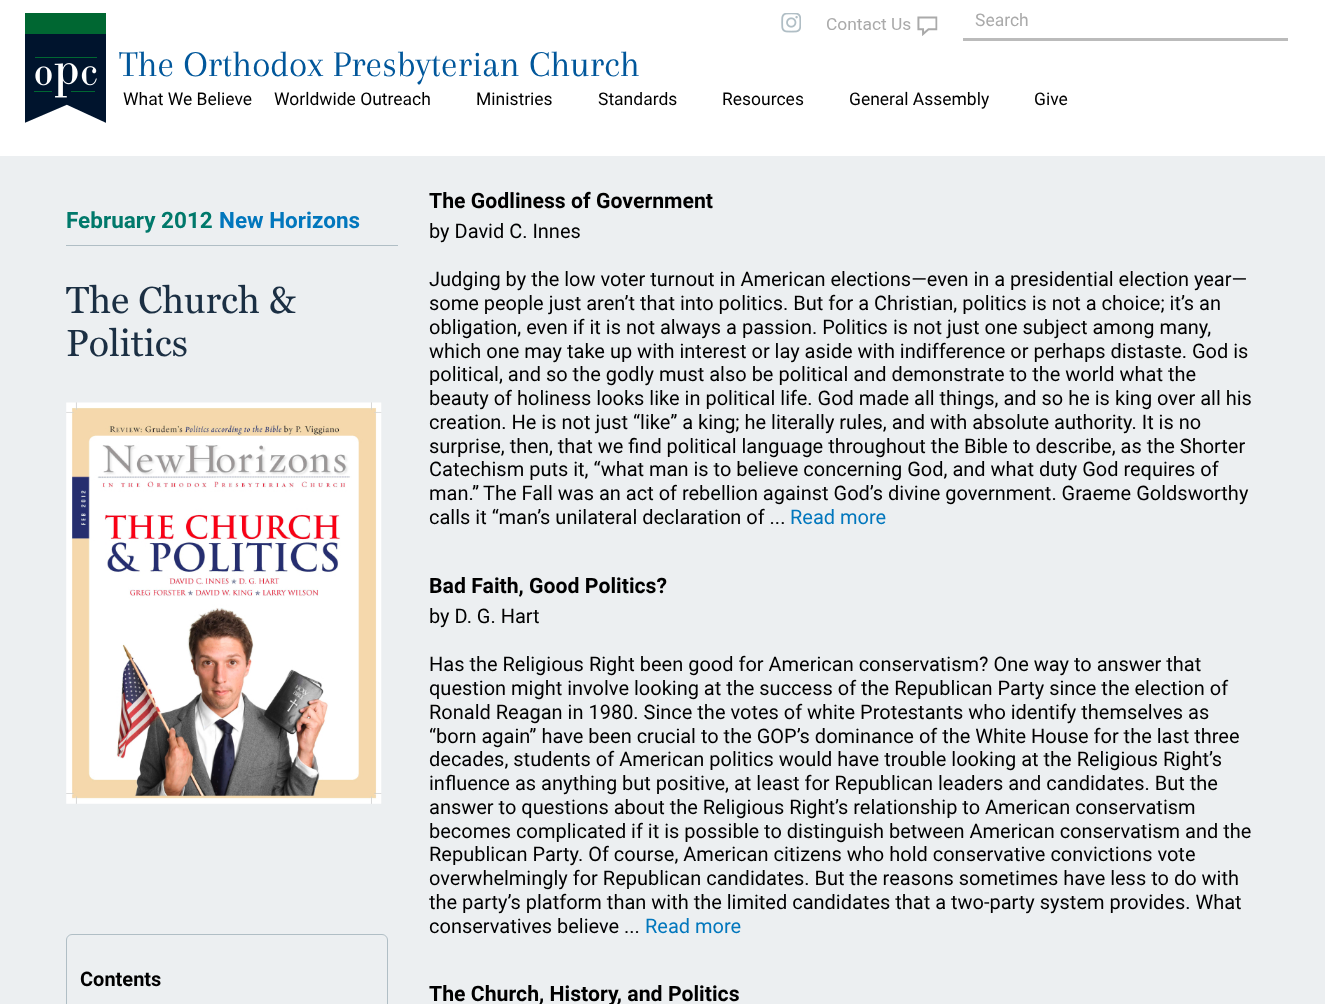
<!DOCTYPE html>
<meta charset="utf-8">
<style>body { margin: 0 } canvas { display: block }</style>
<canvas id="canvas" width="1325" height="1004"></canvas>
<script type="module">
  const canvas = document.getElementById("canvas");
  const g = canvas.getContext("2d");
  g.miterLimit = 4;
  g.fontKerning = "normal";
  function drawText(s, x, y, [font, color]) {
    g.font = font;
    g.fillStyle = color;
    g.fillText(s, x, y);
  }
  function fillBox(x, y, w, h, color) {
    g.fillStyle = color;
    g.fillRect(x, y, w, h);
  }
  async function drawPicture(src, x, y, w, h) {
    const img = new Image();
    img.src = src;
    await img.decode();
    g.drawImage(img, x, y, w, h);
  }

  const s1 = ["17.5px Roboto", "#AAAAAA"];
  const s2 = ["37.5px Arapey", "#01579B"];
  const s3 = ["17.5px Roboto", "#000000"];
  const s4 = ["bold 22.5px Roboto", "#00796B"];
  const s5 = ["bold 22.5px Roboto", "#0277BD"];
  const s6 = ["37.5px Georgia", "#1B2F43"];
  const s7 = ["bold 20px Roboto", "#000000"];
  const s8 = ["bold 21.25px Roboto", "#000000"];
  const s9 = ["20px Roboto", "#000000"];
  const s10 = ["20px Roboto", "#0277BD"];

  fillBox(0, 0, 1325, 1004, "#ECEFF1");
  fillBox(0, 0, 1325, 156, "#FFFFFF");
  await drawPicture("pic1.png", 781, 13, 20, 20);
  await drawPicture("pic2.png", 827, 16, 111, 20);
  fillBox(963, 38, 325, 3, "#BBBBBB");
  drawText("Search", 975, 26, s1);
  await drawPicture("pic3.png", 25, 13, 81, 110);
  drawText("The Orthodox Presbyterian Church", 119, 76, s2);
  drawText("What We Believe", 123, 105, s3);
  drawText("Worldwide Outreach", 274, 105, s3);
  drawText("Ministries", 476, 105, s3);
  drawText("Standards", 598, 105, s3);
  drawText("Resources", 722, 105, s3);
  drawText("General Assembly", 849, 105, s3);
  drawText("Give", 1034, 105, s3);
  fillBox(66, 245, 332, 1, "#B0BEC5");
  drawText("February 2012", 66, 228, s4);
  drawText("New Horizons", 219, 228, s5);
  drawText("The Church &", 66, 313, s6);
  drawText("Politics", 66, 356, s6);
  await drawPicture("pic4.png", 66, 402, 316, 402);
  g.beginPath();
  g.roundRect(66.5, 934.5, 321, 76, 5.5);
  g.strokeStyle = "#B0BEC5";
  g.stroke();
  drawText("Contents", 80, 986, s7);
  drawText("The Godliness of Government", 429, 208, s8);
  drawText("by David C. Innes", 429, 238, s9);
  drawText("Judging by the low voter turnout in American elections—even in a presidential election year—", 429, 286, s9);
  drawText("some people just aren’t that into politics. But for a Christian, politics is not a choice; it’s an", 429, 310, s9);
  drawText("obligation, even if it is not always a passion. Politics is not just one subject among many,", 429, 334, s9);
  drawText("which one may take up with interest or lay aside with indifference or perhaps distaste. God is", 429, 358, s9);
  drawText("political, and so the godly must also be political and demonstrate to the world what the", 429, 381, s9);
  drawText("beauty of holiness looks like in political life. God made all things, and so he is king over all his", 429, 405, s9);
  drawText("creation. He is not just “like” a king; he literally rules, and with absolute authority. It is no", 429, 429, s9);
  drawText("surprise, then, that we find political language throughout the Bible to describe, as the Shorter", 429, 453, s9);
  drawText("Catechism puts it, “what man is to believe concerning God, and what duty God requires of", 429, 476, s9);
  drawText("man.”", 429, 500, s9);
  drawText("The Fall was an act of rebellion against God’s divine government. Graeme Goldsworthy", 483, 500, s9);
  drawText("calls it “man’s unilateral declaration of ...", 429, 524, s9);
  drawText("Read more", 790, 524, s10);
  drawText("Bad Faith, Good Politics?", 429, 593, s8);
  drawText("by D. G. Hart", 429, 623, s9);
  drawText("Has the Religious Right been good for American conservatism? One way to answer that", 429, 671, s9);
  drawText("question might involve looking at the success of the Republican Party since the election of", 429, 695, s9);
  drawText("Ronald Reagan in 1980. Since the votes of white Protestants who identify themselves as", 429, 719, s9);
  drawText("“born again” have been crucial to the GOP’s dominance of the White House for the last three", 429, 743, s9);
  drawText("decades, students of American politics would have trouble looking at the Religious Right’s", 429, 766, s9);
  drawText("influence as anything but positive, at least for Republican leaders and candidates. But the", 429, 790, s9);
  drawText("answer to questions about the Religious Right’s relationship to American conservatism", 429, 814, s9);
  drawText("becomes complicated if it is possible to distinguish between American conservatism and the", 429, 838, s9);
  drawText("Republican Party. Of course, American citizens who hold conservative convictions vote", 429, 861, s9);
  drawText("overwhelmingly for Republican candidates. But the reasons sometimes have less to do with", 429, 885, s9);
  drawText("the party’s platform than with the limited candidates that a two-party system provides. What", 429, 909, s9);
  drawText("conservatives believe ...", 429, 933, s9);
  drawText("Read more", 645, 933, s10);
  drawText("The Church, History, and Politics", 429, 1001, s8);
</script>
